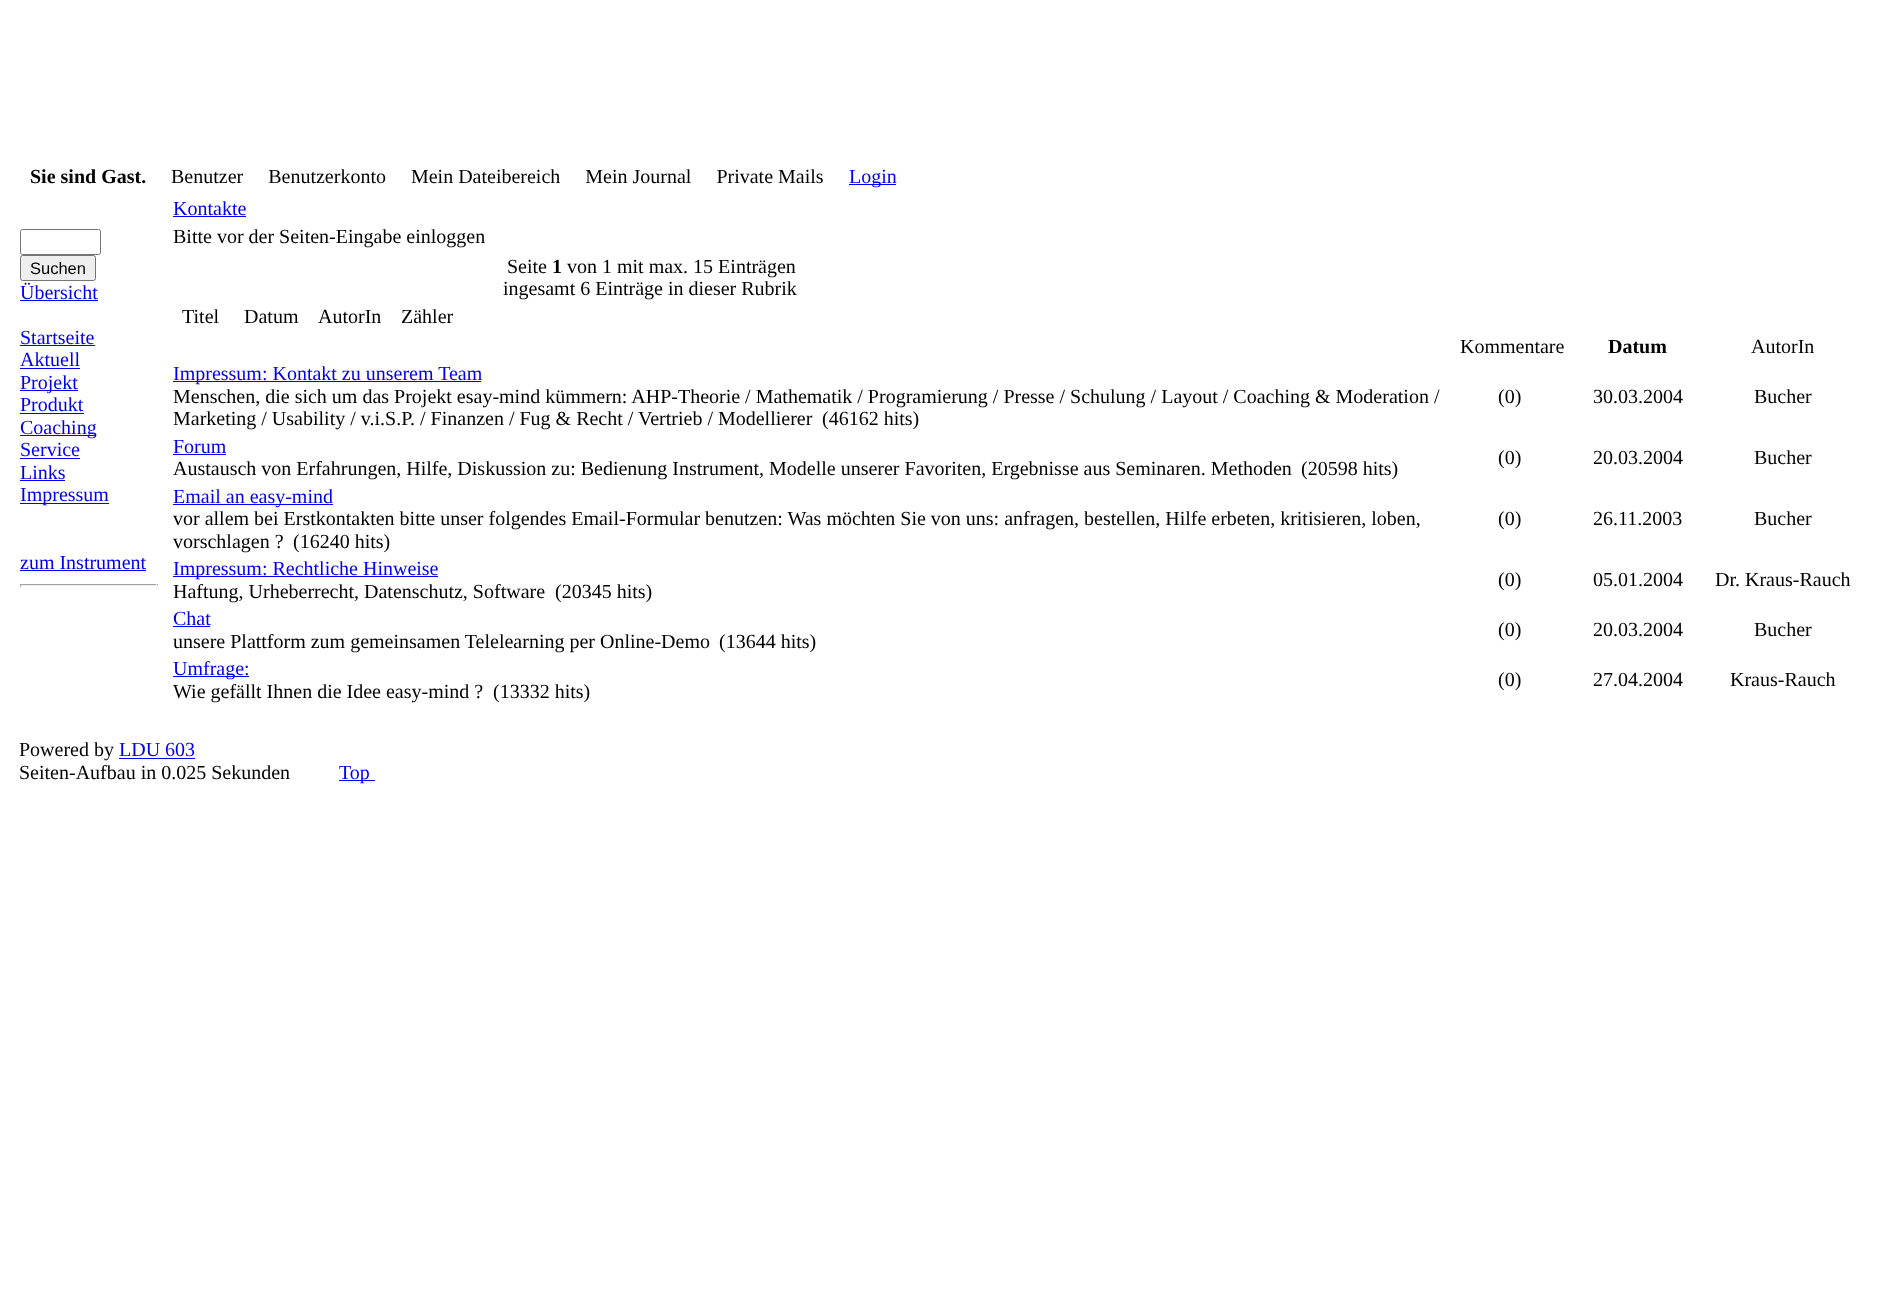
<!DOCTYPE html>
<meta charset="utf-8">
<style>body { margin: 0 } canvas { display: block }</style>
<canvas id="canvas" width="1877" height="1293"></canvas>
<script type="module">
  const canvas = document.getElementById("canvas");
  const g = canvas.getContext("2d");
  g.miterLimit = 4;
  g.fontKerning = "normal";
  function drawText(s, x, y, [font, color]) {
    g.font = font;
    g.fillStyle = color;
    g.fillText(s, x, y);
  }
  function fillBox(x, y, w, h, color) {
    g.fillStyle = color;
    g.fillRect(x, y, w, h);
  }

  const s1 = ["bold 20px Liberation Serif", "#000000"];
  const s2 = ["20px Liberation Serif", "#000000"];
  const s3 = ["20px Liberation Serif", "#0000EE"];
  const s4 = ["16.5px Liberation Sans", "#000000"];

  fillBox(0, 0, 1877, 1293, "#FFFFFF");
  drawText("Sie sind Gast.", 30, 183, s1);
  drawText("Benutzer     Benutzerkonto     Mein Dateibereich     Mein Journal     Private Mails", 171, 183, s2);
  fillBox(849, 184, 47, 1, "#0000EE");
  drawText("Login", 849, 183, s3);
  g.beginPath();
  g.roundRect(20.5, 229.5, 80, 25, 2);
  g.strokeStyle = "#767676";
  g.stroke();
  g.fillStyle = "#EFEFEF";
  g.beginPath();
  g.roundRect(20.5, 255.5, 75, 25, 2);
  g.fill();
  g.stroke();
  drawText("Suchen", 30, 274, s4);
  drawText("Übersicht", 20, 299, s3);
  fillBox(20, 300, 78, 1, "#0000EE");
  drawText("Startseite", 20, 344, s3);
  fillBox(20, 345, 75, 1, "#0000EE");
  drawText("Aktuell", 20, 366, s3);
  fillBox(20, 368, 60, 1, "#0000EE");
  fillBox(20, 390, 58, 1, "#0000EE");
  drawText("Projekt", 20, 389, s3);
  drawText("Produkt", 20, 411, s3);
  fillBox(20, 413, 64, 1, "#0000EE");
  fillBox(20, 435, 76, 1, "#0000EE");
  drawText("Coaching", 20, 434, s3);
  drawText("Service", 20, 456, s3);
  fillBox(20, 458, 60, 1, "#0000EE");
  drawText("Links", 20, 479, s3);
  fillBox(20, 480, 45, 1, "#0000EE");
  fillBox(20, 503, 89, 1, "#0000EE");
  drawText("Impressum", 20, 501, s3);
  drawText("zum Instrument", 20, 569, s3);
  fillBox(20, 570, 126, 1, "#0000EE");
  fillBox(20, 584, 138, 1, "#9F9F9F");
  fillBox(156, 584, 1, 3, "#EEEEEE");
  fillBox(20, 585, 138, 1, "#EEEEEE");
  fillBox(20, 584, 1, 3, "#9F9F9F");
  drawText("Kontakte", 173, 215, s3);
  fillBox(173, 216, 73, 1, "#0000EE");
  drawText("Bitte vor der Seiten-Eingabe einloggen", 173, 243, s2);
  drawText("Seite", 507, 273, s2);
  drawText("1", 552, 273, s1);
  drawText("von 1 mit max. 15 Einträgen", 567, 273, s2);
  drawText("ingesamt 6 Einträge in dieser Rubrik", 503, 295, s2);
  drawText("Titel", 182, 323, s2);
  drawText("Datum", 244, 323, s2);
  drawText("AutorIn", 318, 323, s2);
  drawText("Zähler", 401, 323, s2);
  drawText("Kommentare", 1460, 353, s2);
  drawText("Datum", 1608, 353, s1);
  drawText("AutorIn", 1751, 353, s2);
  fillBox(173, 381, 308, 1, "#0000EE");
  drawText("Impressum: Kontakt zu unserem Team", 173, 380, s3);
  drawText("Menschen, die sich um das Projekt esay-mind kümmern: AHP-Theorie / Mathematik / Programierung / Presse / Schulung / Layout / Coaching & Moderation /", 173, 403, s2);
  drawText("Marketing / Usability / v.i.S.P. / Finanzen / Fug & Recht / Vertrieb / Modellierer", 173, 425, s2);
  drawText("(46162 hits)", 822, 425, s2);
  drawText("(0)", 1498, 403, s2);
  drawText("30.03.2004", 1593, 403, s2);
  drawText("Bucher", 1754, 403, s2);
  drawText("Forum", 173, 453, s3);
  fillBox(173, 454, 53, 1, "#0000EE");
  drawText("Austausch von Erfahrungen, Hilfe, Diskussion zu: Bedienung Instrument, Modelle unserer Favoriten, Ergebnisse aus Seminaren. Methoden", 173, 475, s2);
  drawText("(20598 hits)", 1301, 475, s2);
  drawText("(0)", 1498, 464, s2);
  drawText("20.03.2004", 1593, 464, s2);
  drawText("Bucher", 1754, 464, s2);
  fillBox(173, 504, 160, 1, "#0000EE");
  drawText("Email an easy-mind", 173, 503, s3);
  drawText("vor allem bei Erstkontakten bitte unser folgendes Email-Formular benutzen: Was möchten Sie von uns: anfragen, bestellen, Hilfe erbeten, kritisieren, loben,", 173, 525, s2);
  drawText("vorschlagen ?", 173, 548, s2);
  drawText("(16240 hits)", 293, 548, s2);
  drawText("(0)", 1498, 525, s2);
  drawText("26.11.2003", 1593, 525, s2);
  drawText("Bucher", 1754, 525, s2);
  fillBox(173, 576, 265, 1, "#0000EE");
  drawText("Impressum: Rechtliche Hinweise", 173, 575, s3);
  drawText("Haftung, Urheberrecht, Datenschutz, Software", 173, 598, s2);
  drawText("(20345 hits)", 555, 598, s2);
  drawText("(0)", 1498, 586, s2);
  drawText("05.01.2004", 1593, 586, s2);
  drawText("Dr. Kraus-Rauch", 1715, 586, s2);
  drawText("Chat", 173, 625, s3);
  fillBox(173, 626, 37, 1, "#0000EE");
  drawText("unsere Plattform zum gemeinsamen Telelearning per Online-Demo", 173, 648, s2);
  drawText("(13644 hits)", 719, 648, s2);
  drawText("(0)", 1498, 636, s2);
  drawText("20.03.2004", 1593, 636, s2);
  drawText("Bucher", 1754, 636, s2);
  fillBox(173, 676, 76, 1, "#0000EE");
  drawText("Umfrage:", 173, 675, s3);
  drawText("Wie gefällt Ihnen die Idee easy-mind ?", 173, 698, s2);
  drawText("(13332 hits)", 493, 698, s2);
  drawText("(0)", 1498, 686, s2);
  drawText("27.04.2004", 1593, 686, s2);
  drawText("Kraus-Rauch", 1730, 686, s2);
  drawText("Powered by", 19, 756, s2);
  drawText("LDU 603", 119, 756, s3);
  fillBox(119, 758, 76, 1, "#0000EE");
  drawText("Seiten-Aufbau in 0.025 Sekunden", 19, 779, s2);
  fillBox(339, 780, 36, 1, "#0000EE");
  drawText("Top", 339, 779, s3);
</script>
